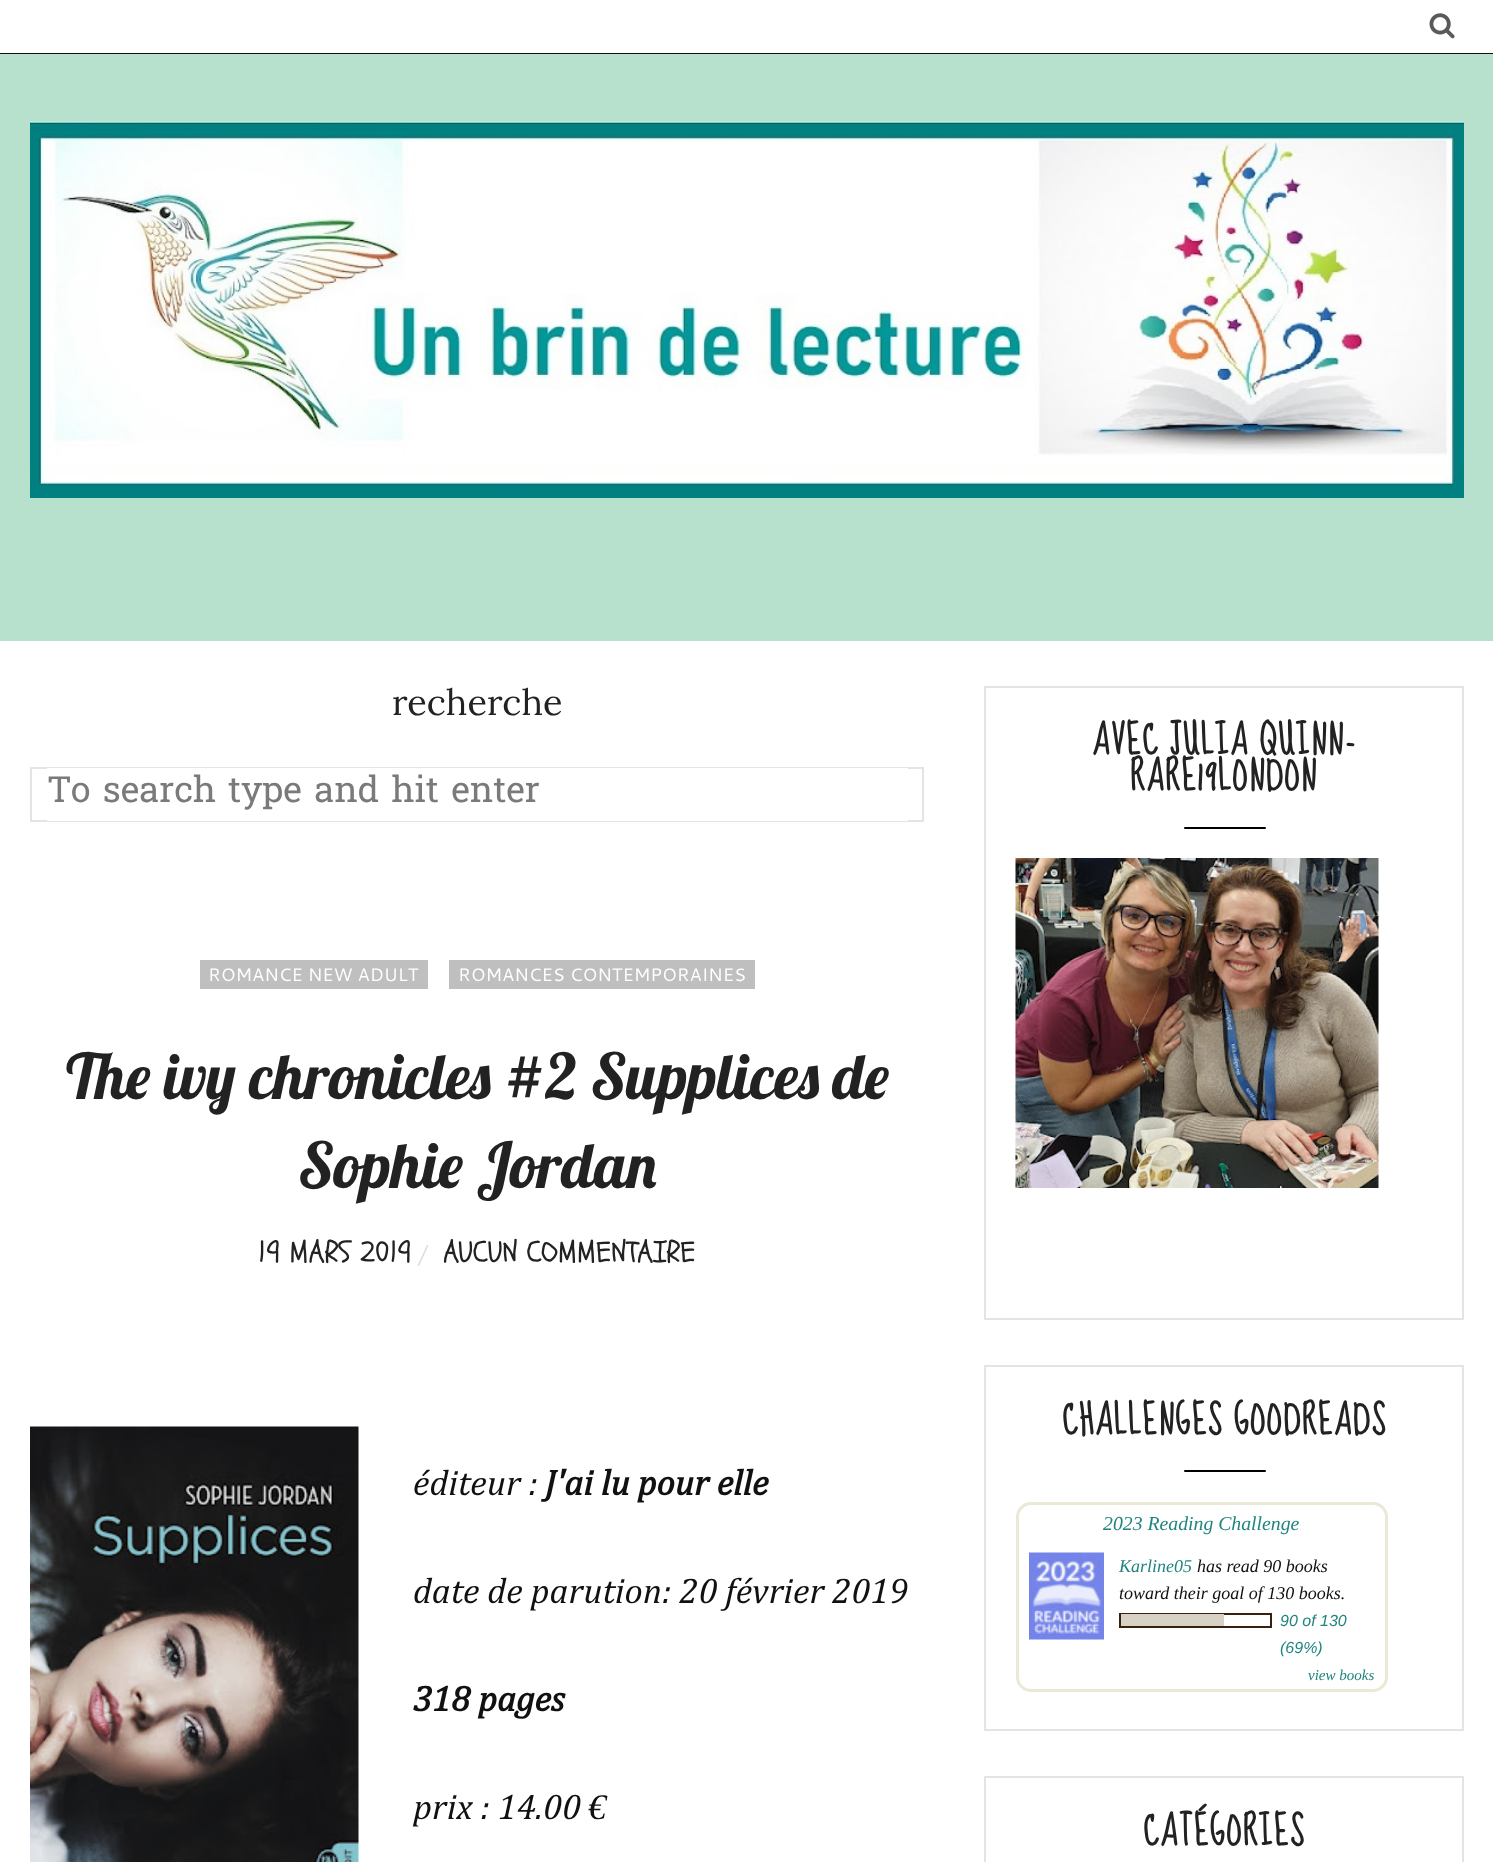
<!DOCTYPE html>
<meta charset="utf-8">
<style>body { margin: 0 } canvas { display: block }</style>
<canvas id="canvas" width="1493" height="1862"></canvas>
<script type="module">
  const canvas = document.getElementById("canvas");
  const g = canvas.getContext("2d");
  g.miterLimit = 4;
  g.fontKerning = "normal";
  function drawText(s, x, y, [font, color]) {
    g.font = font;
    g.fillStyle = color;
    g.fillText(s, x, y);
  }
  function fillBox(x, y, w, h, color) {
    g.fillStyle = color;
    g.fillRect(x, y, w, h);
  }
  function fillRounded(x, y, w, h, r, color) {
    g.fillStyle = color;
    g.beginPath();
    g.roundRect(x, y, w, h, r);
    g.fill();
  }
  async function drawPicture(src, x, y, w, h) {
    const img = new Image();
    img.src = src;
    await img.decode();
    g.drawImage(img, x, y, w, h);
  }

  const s1 = ["36px Lora", "#222222"];
  const s2 = ["36px Hanuman", "#7A7A7A"];
  const s3 = ["18px Cantarell", "#FFFFFF"];
  const s4 = ["63px Lobster", "#222222"];
  const s5 = ["30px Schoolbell", "#222222"];
  const s6 = ["italic 36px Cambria", "#111111"];
  const s7 = ["italic bold 36px Cambria", "#111111"];
  const s8 = ["italic 36px Liberation Serif", "#111111"];
  const s9 = ["bold 36px Sue Ellen Francisco", "#222222"];
  const s10 = ["italic 19.75px Liberation Serif", "#20857E"];
  const s11 = ["italic 18px Liberation Serif", "#20857E"];
  const s12 = ["italic 18px Liberation Serif", "#111111"];
  const s13 = ["italic 16px Liberation Sans", "#20857E"];
  const s14 = ["italic 15px Liberation Serif", "#20857E"];

  fillBox(0, 0, 1493, 1862, "#B7E1CD");
  fillBox(0, 0, 1493, 53, "#FFFFFF");
  fillBox(0, 53, 1493, 1, "#111111");
  await drawPicture("pic1.png", 1429, 13, 26, 26);
  await drawPicture("pic2.png", 30, 121, 1434, 377);
  fillBox(0, 641, 1493, 1221, "#FFFFFF");
  drawText("recherche", 392, 715, s1);
  g.strokeStyle = "#E4E4E4";
  g.lineWidth = 2;
  g.strokeRect(31, 768, 892, 53);
  fillBox(47, 768, 861, 53, "#FFFFFF");
  drawText("To search type and hit enter", 47, 802, s2);
  fillBox(200, 960, 228, 29, "#BFBFBF");
  drawText("ROMANCE NEW ADULT", 208, 981, s3);
  fillBox(449, 960, 306, 29, "#BFBFBF");
  drawText("ROMANCES CONTEMPORAINES", 458, 981, s3);
  drawText("The ivy chronicles #2 Supplices de", 66, 1099, s4);
  drawText("Sophie Jordan", 298, 1188, s4);
  drawText("19 MARS 2019", 258, 1262, s5);
  g.fillStyle = "#DDDDDD";
  g.beginPath();
  g.moveTo(427, 1245);
  g.lineTo(428.5, 1245.5);
  g.lineTo(419, 1266);
  g.lineTo(417.5, 1265.5);
  g.closePath();
  g.fill();
  drawText("AUCUN COMMENTAIRE", 443, 1262, s5);
  await drawPicture("pic3.png", 30, 1426, 329, 436);
  drawText("éditeur :", 413, 1495, s6);
  drawText("J'ai lu pour elle", 545, 1495, s7);
  drawText("date de parution: 20 février 2019", 413, 1603, s6);
  drawText("318 pages", 413, 1711, s7);
  drawText("prix : 14.00", 413, 1819, s6);
  drawText("€", 588, 1819, s8);
  g.strokeRect(985, 687, 478, 632);
  g.letterSpacing = "1.5px";
  drawText("AVEC JULIA QUINN-", 1092, 754, s9);
  drawText("RARE19LONDON", 1130, 790, s9);
  fillRounded(1184, 827, 82, 2, 1, "#000000");
  await drawPicture("pic4.png", 1015, 858, 364, 330);
  g.strokeRect(985, 1366, 478, 364);
  drawText("CHALLENGES GOODREADS", 1062, 1434, s9);
  fillRounded(1184, 1470, 82, 2, 1, "#000000");
  g.beginPath();
  g.roundRect(1017.5, 1503.5, 369, 187, 13.5);
  g.strokeStyle = "#EBE8D5";
  g.lineWidth = 3;
  g.stroke();
  g.letterSpacing = "0px";
  drawText("2023 Reading Challenge", 1103, 1530, s10);
  await drawPicture("pic5.png", 1029, 1552, 75, 88);
  drawText("Karline05", 1119, 1572, s11);
  drawText("has read 90 books", 1197, 1572, s12);
  drawText("toward their goal of 130 books.", 1119, 1599, s12);
  g.strokeStyle = "#382110";
  g.lineWidth = 2;
  g.strokeRect(1120, 1614, 151, 13);
  fillBox(1121, 1614, 103, 12, "#D7D2C4");
  drawText("90 of 130", 1280, 1626, s13);
  drawText("(69%)", 1280, 1653, s13);
  drawText("view books", 1308, 1680, s14);
  g.strokeStyle = "#E4E4E4";
  g.strokeRect(985, 1777, 478, 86);
  g.letterSpacing = "1.5px";
  drawText("CATÉGORIES", 1143, 1845, s9);
</script>
